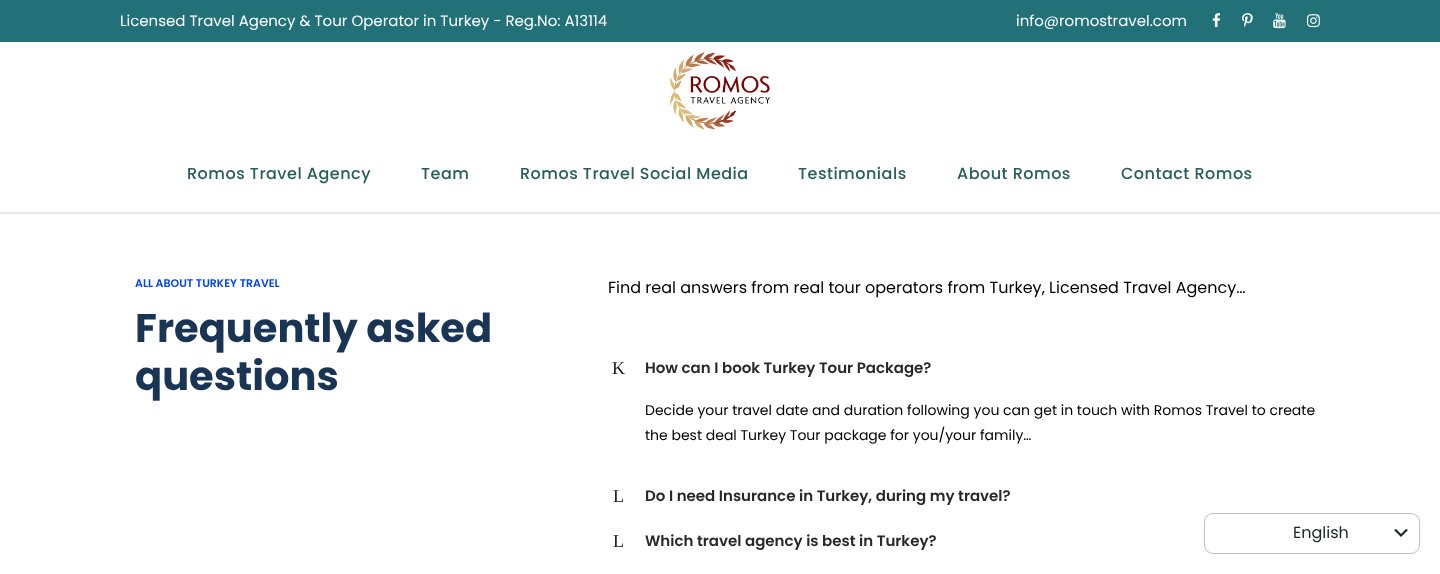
<!DOCTYPE html>
<meta charset="utf-8">
<style>body { margin: 0 } canvas { display: block }</style>
<canvas id="canvas" width="1440" height="574"></canvas>
<script type="module">
  const canvas = document.getElementById("canvas");
  const g = canvas.getContext("2d");
  g.miterLimit = 4;
  g.fontKerning = "normal";
  function drawText(s, x, y, [font, color]) {
    g.font = font;
    g.fillStyle = color;
    g.fillText(s, x, y);
  }
  function fillBox(x, y, w, h, color) {
    g.fillStyle = color;
    g.fillRect(x, y, w, h);
  }
  async function drawPicture(src, x, y, w, h) {
    const img = new Image();
    img.src = src;
    await img.decode();
    g.drawImage(img, x, y, w, h);
  }

  const s1 = ["15px Poppins", "#FFFFFF"];
  const s2 = ["500 16px Poppins", "#285F56"];
  const s3 = ["600 11px Poppins", "#0044EB"];
  const s4 = ["bold 40px Poppins", "#1A3454"];
  const s5 = ["16px Poppins", "#000000"];
  const s6 = ["18px Liberation Serif", "#191919"];
  const s7 = ["600 15px Poppins", "#282828"];
  const s8 = ["14px Poppins", "#000000"];
  const s9 = ["16px Poppins", "#1D2327"];

  fillBox(0, 0, 1440, 574, "#FFFFFF");
  fillBox(0, 0, 1440, 42, "#227179");
  drawText("Licensed Travel Agency & Tour Operator in Turkey - Reg.No: A13114", 120, 26, s1);
  drawText("info@romostravel.com", 1016, 26, s1);
  await drawPicture("pic1.png", 1212, 13, 9, 15);
  await drawPicture("pic2.png", 1242, 13, 11, 14);
  await drawPicture("pic3.png", 1273, 13, 13, 16);
  await drawPicture("pic4.png", 1307, 14, 13, 14);
  fillBox(0, 212, 1440, 2, "#E8E8E8");
  await drawPicture("pic5.png", 670, 52, 100, 78);
  g.letterSpacing = "0.5px";
  drawText("Romos Travel Agency", 187, 179, s2);
  drawText("Team", 421, 179, s2);
  drawText("Romos Travel Social Media", 520, 179, s2);
  drawText("Testimonials", 798, 179, s2);
  drawText("About Romos", 957, 179, s2);
  drawText("Contact Romos", 1121, 179, s2);
  g.letterSpacing = "0px";
  drawText("ALL ABOUT TURKEY TRAVEL", 135, 287, s3);
  drawText("Frequently asked", 135, 342, s4);
  drawText("questions", 135, 390, s4);
  drawText("Find real answers from real tour operators from Turkey, Licensed Travel Agency…", 608, 293, s5);
  drawText("K", 612, 374, s6);
  drawText("How can I book Turkey Tour Package?", 645, 373, s7);
  drawText("Decide your travel date and duration following you can get in touch with Romos Travel to create", 645, 415, s8);
  drawText("the best deal Turkey Tour package for you/your family…", 645, 440, s8);
  drawText("L", 613, 502, s6);
  drawText("Do I need Insurance in Turkey, during my travel?", 645, 501, s7);
  drawText("L", 613, 547, s6);
  drawText("Which travel agency is best in Turkey?", 645, 546, s7);
  g.beginPath();
  g.roundRect(1204.5, 513.5, 215, 40, 8.5);
  g.strokeStyle = "#BFBFBF";
  g.stroke();
  await drawPicture("pic6.png", 1394, 529, 14, 8);
  drawText("English", 1293, 538, s9);
</script>
